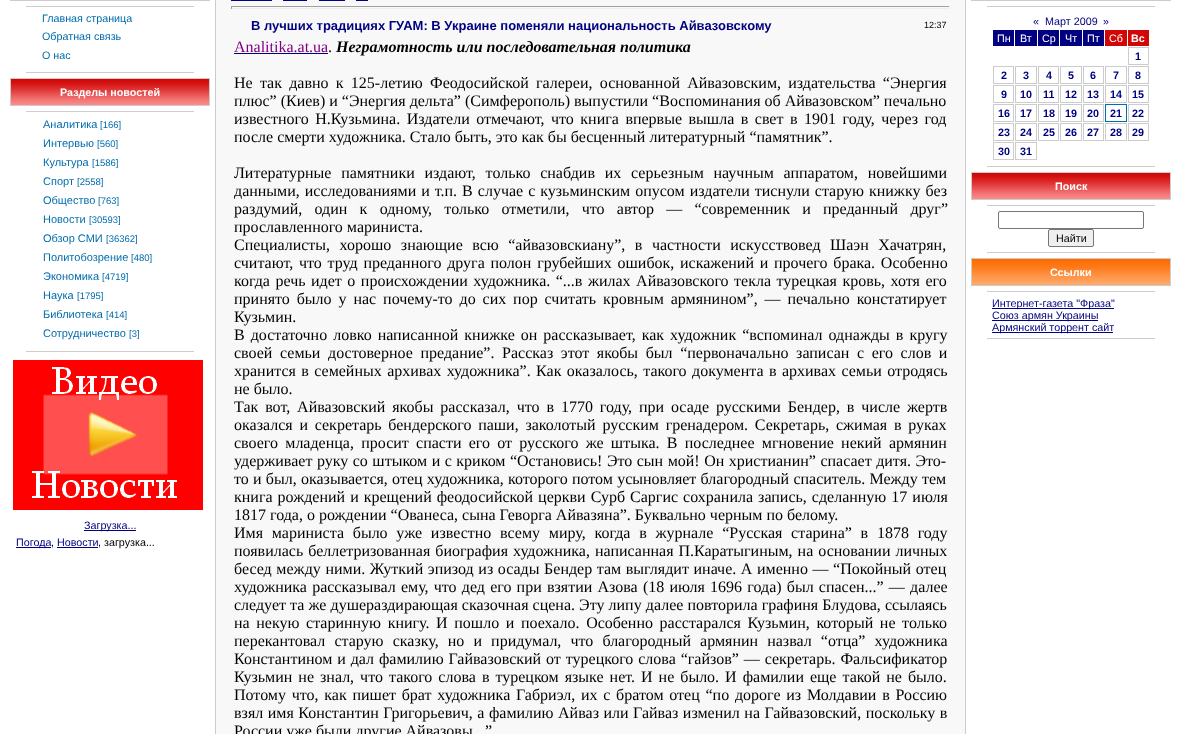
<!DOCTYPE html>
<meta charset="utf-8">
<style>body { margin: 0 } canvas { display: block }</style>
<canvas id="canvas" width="1181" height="734"></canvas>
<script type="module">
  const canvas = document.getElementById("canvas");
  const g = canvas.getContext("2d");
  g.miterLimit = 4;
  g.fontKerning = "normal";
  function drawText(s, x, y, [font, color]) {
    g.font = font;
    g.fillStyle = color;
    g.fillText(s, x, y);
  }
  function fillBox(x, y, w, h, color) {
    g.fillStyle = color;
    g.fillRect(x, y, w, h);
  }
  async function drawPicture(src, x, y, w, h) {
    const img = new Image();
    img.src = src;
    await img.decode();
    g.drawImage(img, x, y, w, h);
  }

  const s1 = ["10.75px Liberation Sans", "#016CAC"];
  const s2 = ["bold 10.75px Liberation Sans", "#FFFFFF"];
  const s3 = ["11px Liberation Sans", "#016CAC"];
  const s4 = ["9.5px Liberation Sans", "#016CAC"];
  const s5 = ["10.75px Liberation Sans", "#000080"];
  const s6 = ["10.75px Liberation Sans", "#000000"];
  const s7 = ["bold 13px Liberation Sans", "#000080"];
  const s8 = ["9px Liberation Sans", "#000000"];
  const s9 = ["16px Liberation Serif", "#800080"];
  const s10 = ["16px Liberation Serif", "#000000"];
  const s11 = ["italic bold 16px Liberation Serif", "#000000"];
  const s12 = ["10.75px Liberation Sans", "#FFFFFF"];
  const s13 = ["bold 10.75px Liberation Sans", "#000080"];

  fillBox(0, 0, 1181, 734, "#FFFFFF");
  g.strokeStyle = "#CCCCCC";
  g.strokeRect(10.5, -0.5, 199, 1);
  fillBox(26, 6, 168, 1, "#CDCDCD");
  fillBox(26, 72, 168, 1, "#CDCDCD");
  drawText("Главная страница", 42, 22, s1);
  drawText("Обратная связь", 42, 40, s1);
  drawText("О нас", 42, 59, s1);
  await drawPicture("pic1.png", 11, 79, 198, 26);
  g.strokeRect(10.5, 78.5, 199, 27);
  drawText("Разделы новостей", 60, 96, s2);
  fillBox(26, 111, 168, 1, "#CDCDCD");
  fillBox(26, 351, 168, 1, "#CDCDCD");
  drawText("Аналитика", 43, 128, s3);
  drawText("[166]", 100, 128, s4);
  drawText("Интервью", 43, 147, s3);
  drawText("[560]", 97, 147, s4);
  drawText("Культура", 43, 166, s3);
  drawText("[1586]", 92, 166, s4);
  drawText("Спорт", 43, 185, s3);
  drawText("[2558]", 77, 185, s4);
  drawText("Общество", 43, 204, s3);
  drawText("[763]", 98, 204, s4);
  drawText("Новости", 43, 223, s3);
  drawText("[30593]", 89, 223, s4);
  drawText("Обзор СМИ", 43, 242, s3);
  drawText("[36362]", 106, 242, s4);
  drawText("Политобозрение", 43, 261, s3);
  drawText("[480]", 131, 261, s4);
  drawText("Экономика", 43, 280, s3);
  drawText("[4719]", 102, 280, s4);
  drawText("Наука", 43, 299, s3);
  drawText("[1795]", 77, 299, s4);
  drawText("Библиотека", 43, 318, s3);
  drawText("[414]", 106, 318, s4);
  drawText("Сотрудничество", 43, 337, s3);
  drawText("[3]", 129, 337, s4);
  await drawPicture("pic2.png", 13, 360, 190, 150);
  fillBox(84, 530, 52, 1, "#000080");
  drawText("Загрузка...", 84, 529, s5);
  fillBox(16, 547, 35, 1, "#000080");
  drawText("Погода", 16, 546, s5);
  drawText(",", 51, 546, s6);
  drawText("Новости", 57, 546, s5);
  fillBox(57, 547, 41, 1, "#000080");
  drawText(", загрузка...", 98, 546, s6);
  g.strokeRect(215.5, -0.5, 750, 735);
  fillBox(216, 0, 749, 734, "#F8F8F8");
  fillBox(231, 0, 41, 1, "#000080");
  fillBox(283, 0, 24, 1, "#000080");
  fillBox(319, 0, 26, 1, "#000080");
  fillBox(356, 0, 12, 1, "#000080");
  fillBox(231, 6, 719, 1, "#9F9F9F");
  fillBox(949, 6, 1, 3, "#EEEEEE");
  fillBox(231, 8, 719, 1, "#EEEEEE");
  fillBox(231, 6, 1, 3, "#9F9F9F");
  drawText("В лучших традициях ГУАМ: В Украине поменяли национальность Айвазовскому", 251, 30, s7);
  drawText("12:37", 924, 28, s8);
  drawText("Analitika.at.ua", 234, 52, s9);
  fillBox(234, 53, 94, 1, "#000080");
  drawText(".", 328, 52, s10);
  drawText("Неграмотность или последовательная политика", 336, 52, s11);
  g.wordSpacing = "3.25px";
  drawText("Не так давно к 125-летию Феодосийской галереи, основанной Айвазовским, издательства “Энергия", 234, 88, s10);
  g.wordSpacing = "0px";
  drawText("плюс” (Киев) и “Энергия дельта” (Симферополь) выпустили “Воспоминания об Айвазовском” печально", 234, 106, s10);
  g.wordSpacing = "2.5px";
  drawText("известного Н.Кузьмина. Издатели отмечают, что книга впервые вышла в свет в 1901 году, через год", 234, 124, s10);
  g.wordSpacing = "0px";
  drawText("после смерти художника. Стало быть, это как бы бесценный литературный “памятник”.", 234, 142, s10);
  g.wordSpacing = "5.75px";
  drawText("Литературные памятники издают, только снабдив их серьезным научным аппаратом, новейшими", 234, 178, s10);
  g.wordSpacing = "1px";
  drawText("данными, исследованиями и т.п. В случае с кузьминским опусом издатели тиснули старую книжку без", 234, 196, s10);
  g.wordSpacing = "8.25px";
  drawText("раздумий, один к одному, только отметили, что автор — “современник и преданный друг”", 234, 214, s10);
  g.wordSpacing = "0px";
  drawText("прославленного мариниста.", 234, 232, s10);
  g.wordSpacing = "5.5px";
  drawText("Специалисты, хорошо знающие всю “айвазовскиану”, в частности искусствовед Шаэн Хачатрян,", 234, 250, s10);
  g.wordSpacing = "1.75px";
  drawText("считают, что труд преданного друга полон грубейших ошибок, искажений и прочего брака. Особенно", 234, 268, s10);
  g.wordSpacing = "1.5px";
  drawText("когда речь идет о происхождении художника. “...в жилах Айвазовского текла турецкая кровь, хотя его", 234, 286, s10);
  g.wordSpacing = "2.9px";
  drawText("принято было у нас почему-то до сих пор считать кровным армянином”, — печально констатирует", 234, 304, s10);
  g.wordSpacing = "0px";
  drawText("Кузьмин.", 234, 322, s10);
  g.wordSpacing = "2px";
  drawText("В достаточно ловко написанной книжке он рассказывает, как художник “вспоминал однажды в кругу", 234, 340, s10);
  g.wordSpacing = "3.6px";
  drawText("своей семьи достоверное предание”. Рассказ этот якобы был “первоначально записан с его слов и", 234, 358, s10);
  g.wordSpacing = "1.4px";
  drawText("хранится в семейных архивах художника”. Как оказалось, такого документа в архивах семьи отродясь", 234, 376, s10);
  g.wordSpacing = "0px";
  drawText("не было.", 234, 394, s10);
  g.wordSpacing = "2.9px";
  drawText("Так вот, Айвазовский якобы рассказал, что в 1770 году, при осаде русскими Бендер, в числе жертв", 234, 412, s10);
  g.wordSpacing = "2.75px";
  drawText("оказался и секретарь бендерского паши, заколотый русским гренадером. Секретарь, сжимая в руках", 234, 430, s10);
  g.wordSpacing = "3.25px";
  drawText("своего младенца, просит спасти его от русского же штыка. В последнее мгновение некий армянин", 234, 448, s10);
  g.wordSpacing = "0.5px";
  drawText("удерживает руку со штыком и с криком “Остановись! Это сын мой! Он христианин” спасает дитя. Это-", 234, 466, s10);
  g.wordSpacing = "0.25px";
  drawText("то и был, оказывается, отец художника, которого потом усыновляет благородный спаситель. Между тем", 234, 484, s10);
  g.wordSpacing = "1px";
  drawText("книга рождений и крещений феодосийской церкви Сурб Саргис сохранила запись, сделанную 17 июля", 234, 502, s10);
  g.wordSpacing = "0px";
  drawText("1817 года, о рождении “Ованеса, сына Геворга Айвазяна”. Буквально черным по белому.", 234, 520, s10);
  g.wordSpacing = "4.75px";
  drawText("Имя мариниста было уже известно всему миру, когда в журнале “Русская старина” в 1878 году", 234, 538, s10);
  g.wordSpacing = "1px";
  drawText("появилась беллетризованная биография художника, написанная П.Каратыгиным, на основании личных", 234, 556, s10);
  g.wordSpacing = "0.6px";
  drawText("бесед между ними. Жуткий эпизод из осады Бендер там выглядит иначе. А именно — “Покойный отец", 234, 574, s10);
  g.wordSpacing = "1.2px";
  drawText("художника рассказывал ему, что дед его при взятии Азова (18 июля 1696 года) был спасен...” — далее", 234, 592, s10);
  g.wordSpacing = "0.1px";
  drawText("следует та же душераздирающая сказочная сцена. Эту липу далее повторила графиня Блудова, ссылаясь", 234, 610, s10);
  g.wordSpacing = "2.6px";
  drawText("на некую старинную книгу. И пошло и поехало. Особенно расстарался Кузьмин, который не только", 234, 628, s10);
  g.wordSpacing = "5.1px";
  drawText("перекантовал старую сказку, но и придумал, что благородный армянин назвал “отца” художника", 234, 646, s10);
  g.wordSpacing = "0.9px";
  drawText("Константином и дал фамилию Гайвазовский от турецкого слова “гайзов” — секретарь. Фальсификатор", 234, 664, s10);
  g.wordSpacing = "2px";
  drawText("Кузьмин не знал, что такого слова в турецком языке нет. И не было. И фамилии еще такой не было.", 234, 682, s10);
  g.wordSpacing = "1.75px";
  drawText("Потому что, как пишет брат художника Габриэл, их с братом отец “по дороге из Молдавии в Россию", 234, 700, s10);
  g.wordSpacing = "0.5px";
  drawText("взял имя Константин Григорьевич, а фамилию Айваз или Гайваз изменил на Гайвазовский, поскольку в", 234, 718, s10);
  g.wordSpacing = "0px";
  drawText("России уже были другие Айвазовы", 234, 736, s10);
  drawText("”", 485, 736, s10);
  g.strokeRect(971.5, -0.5, 199, 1);
  fillBox(987, 6, 168, 1, "#CDCDCD");
  fillBox(987, 166, 168, 1, "#CDCDCD");
  drawText("«", 1033, 25, s5);
  drawText("Март 2009", 1045, 25, s5);
  drawText("»", 1103, 25, s5);
  fillBox(993, 30, 21, 16, "#000080");
  drawText("Пн", 997, 42, s12);
  fillBox(1015, 30, 22, 16, "#000080");
  drawText("Вт", 1020, 42, s12);
  fillBox(1038, 30, 21, 16, "#000080");
  drawText("Ср", 1042, 42, s12);
  fillBox(1060, 30, 22, 16, "#000080");
  drawText("Чт", 1065, 42, s12);
  fillBox(1083, 30, 21, 16, "#000080");
  drawText("Пт", 1087, 42, s12);
  fillBox(1105, 30, 22, 16, "#D10707");
  drawText("Сб", 1109, 42, s12);
  fillBox(1128, 30, 21, 16, "#D10707");
  drawText("Вс", 1131, 42, s2);
  g.strokeRect(1128.5, 47.5, 20, 17);
  drawText("1", 1135, 60, s13);
  g.strokeRect(993.5, 66.5, 20, 17);
  drawText("2", 1001, 79, s13);
  g.strokeRect(1015.5, 66.5, 21, 17);
  drawText("3", 1023, 79, s13);
  g.strokeRect(1038.5, 66.5, 20, 17);
  drawText("4", 1046, 79, s13);
  g.strokeRect(1060.5, 66.5, 21, 17);
  drawText("5", 1068, 79, s13);
  g.strokeRect(1083.5, 66.5, 20, 17);
  drawText("6", 1090, 79, s13);
  g.strokeRect(1105.5, 66.5, 21, 17);
  drawText("7", 1113, 79, s13);
  g.strokeRect(1128.5, 66.5, 20, 17);
  drawText("8", 1135, 79, s13);
  g.strokeRect(993.5, 85.5, 20, 17);
  drawText("9", 1001, 98, s13);
  g.strokeRect(1015.5, 85.5, 21, 17);
  drawText("10", 1020, 98, s13);
  g.strokeRect(1038.5, 85.5, 20, 17);
  drawText("11", 1043, 98, s13);
  g.strokeRect(1060.5, 85.5, 21, 17);
  drawText("12", 1065, 98, s13);
  g.strokeRect(1083.5, 85.5, 20, 17);
  drawText("13", 1087, 98, s13);
  g.strokeRect(1105.5, 85.5, 21, 17);
  drawText("14", 1110, 98, s13);
  g.strokeRect(1128.5, 85.5, 20, 17);
  drawText("15", 1132, 98, s13);
  g.strokeRect(993.5, 104.5, 20, 17);
  drawText("16", 998, 117, s13);
  g.strokeRect(1015.5, 104.5, 21, 17);
  drawText("17", 1020, 117, s13);
  g.strokeRect(1038.5, 104.5, 20, 17);
  drawText("18", 1043, 117, s13);
  g.strokeRect(1060.5, 104.5, 21, 17);
  drawText("19", 1065, 117, s13);
  g.strokeRect(1083.5, 104.5, 20, 17);
  drawText("20", 1087, 117, s13);
  g.strokeStyle = "#016EAD";
  g.strokeRect(1105.5, 104.5, 21, 17);
  drawText("21", 1110, 117, s13);
  g.strokeStyle = "#CCCCCC";
  g.strokeRect(1128.5, 104.5, 20, 17);
  drawText("22", 1132, 117, s13);
  g.strokeRect(993.5, 123.5, 20, 17);
  drawText("23", 998, 136, s13);
  g.strokeRect(1015.5, 123.5, 21, 17);
  drawText("24", 1020, 136, s13);
  g.strokeRect(1038.5, 123.5, 20, 17);
  drawText("25", 1043, 136, s13);
  g.strokeRect(1060.5, 123.5, 21, 17);
  drawText("26", 1065, 136, s13);
  g.strokeRect(1083.5, 123.5, 20, 17);
  drawText("27", 1087, 136, s13);
  g.strokeRect(1105.5, 123.5, 21, 17);
  drawText("28", 1110, 136, s13);
  g.strokeRect(1128.5, 123.5, 20, 17);
  drawText("29", 1132, 136, s13);
  g.strokeRect(993.5, 142.5, 20, 17);
  drawText("30", 998, 155, s13);
  g.strokeRect(1015.5, 142.5, 21, 17);
  drawText("31", 1020, 155, s13);
  await drawPicture("pic1.png", 972, 173, 198, 26);
  g.strokeRect(971.5, 172.5, 199, 27);
  drawText("Поиск", 1055, 190, s2);
  fillBox(987, 205, 168, 1, "#CDCDCD");
  fillBox(987, 252, 168, 1, "#CDCDCD");
  g.beginPath();
  g.roundRect(998.5, 211.5, 145, 17, 1.5);
  g.strokeStyle = "#767676";
  g.stroke();
  g.fillStyle = "#EFEFEF";
  g.beginPath();
  g.roundRect(1048.5, 229.5, 45, 17, 1.5);
  g.fill();
  g.stroke();
  drawText("Найти", 1056, 242, s6);
  await drawPicture("pic3.png", 972, 259, 198, 26);
  g.strokeStyle = "#CCCCCC";
  g.strokeRect(971.5, 258.5, 199, 27);
  drawText("Ссылки", 1050, 276, s2);
  fillBox(987, 291, 168, 1, "#CDCDCD");
  fillBox(987, 338, 168, 1, "#CDCDCD");
  fillBox(992, 308, 122, 1, "#000080");
  drawText("Интернет-газета \"Фраза\"", 992, 307, s5);
  fillBox(992, 320, 106, 1, "#000080");
  drawText("Союз армян Украины", 992, 319, s5);
  fillBox(992, 332, 121, 1, "#000080");
  drawText("Армянский торрент сайт", 992, 331, s5);
</script>
